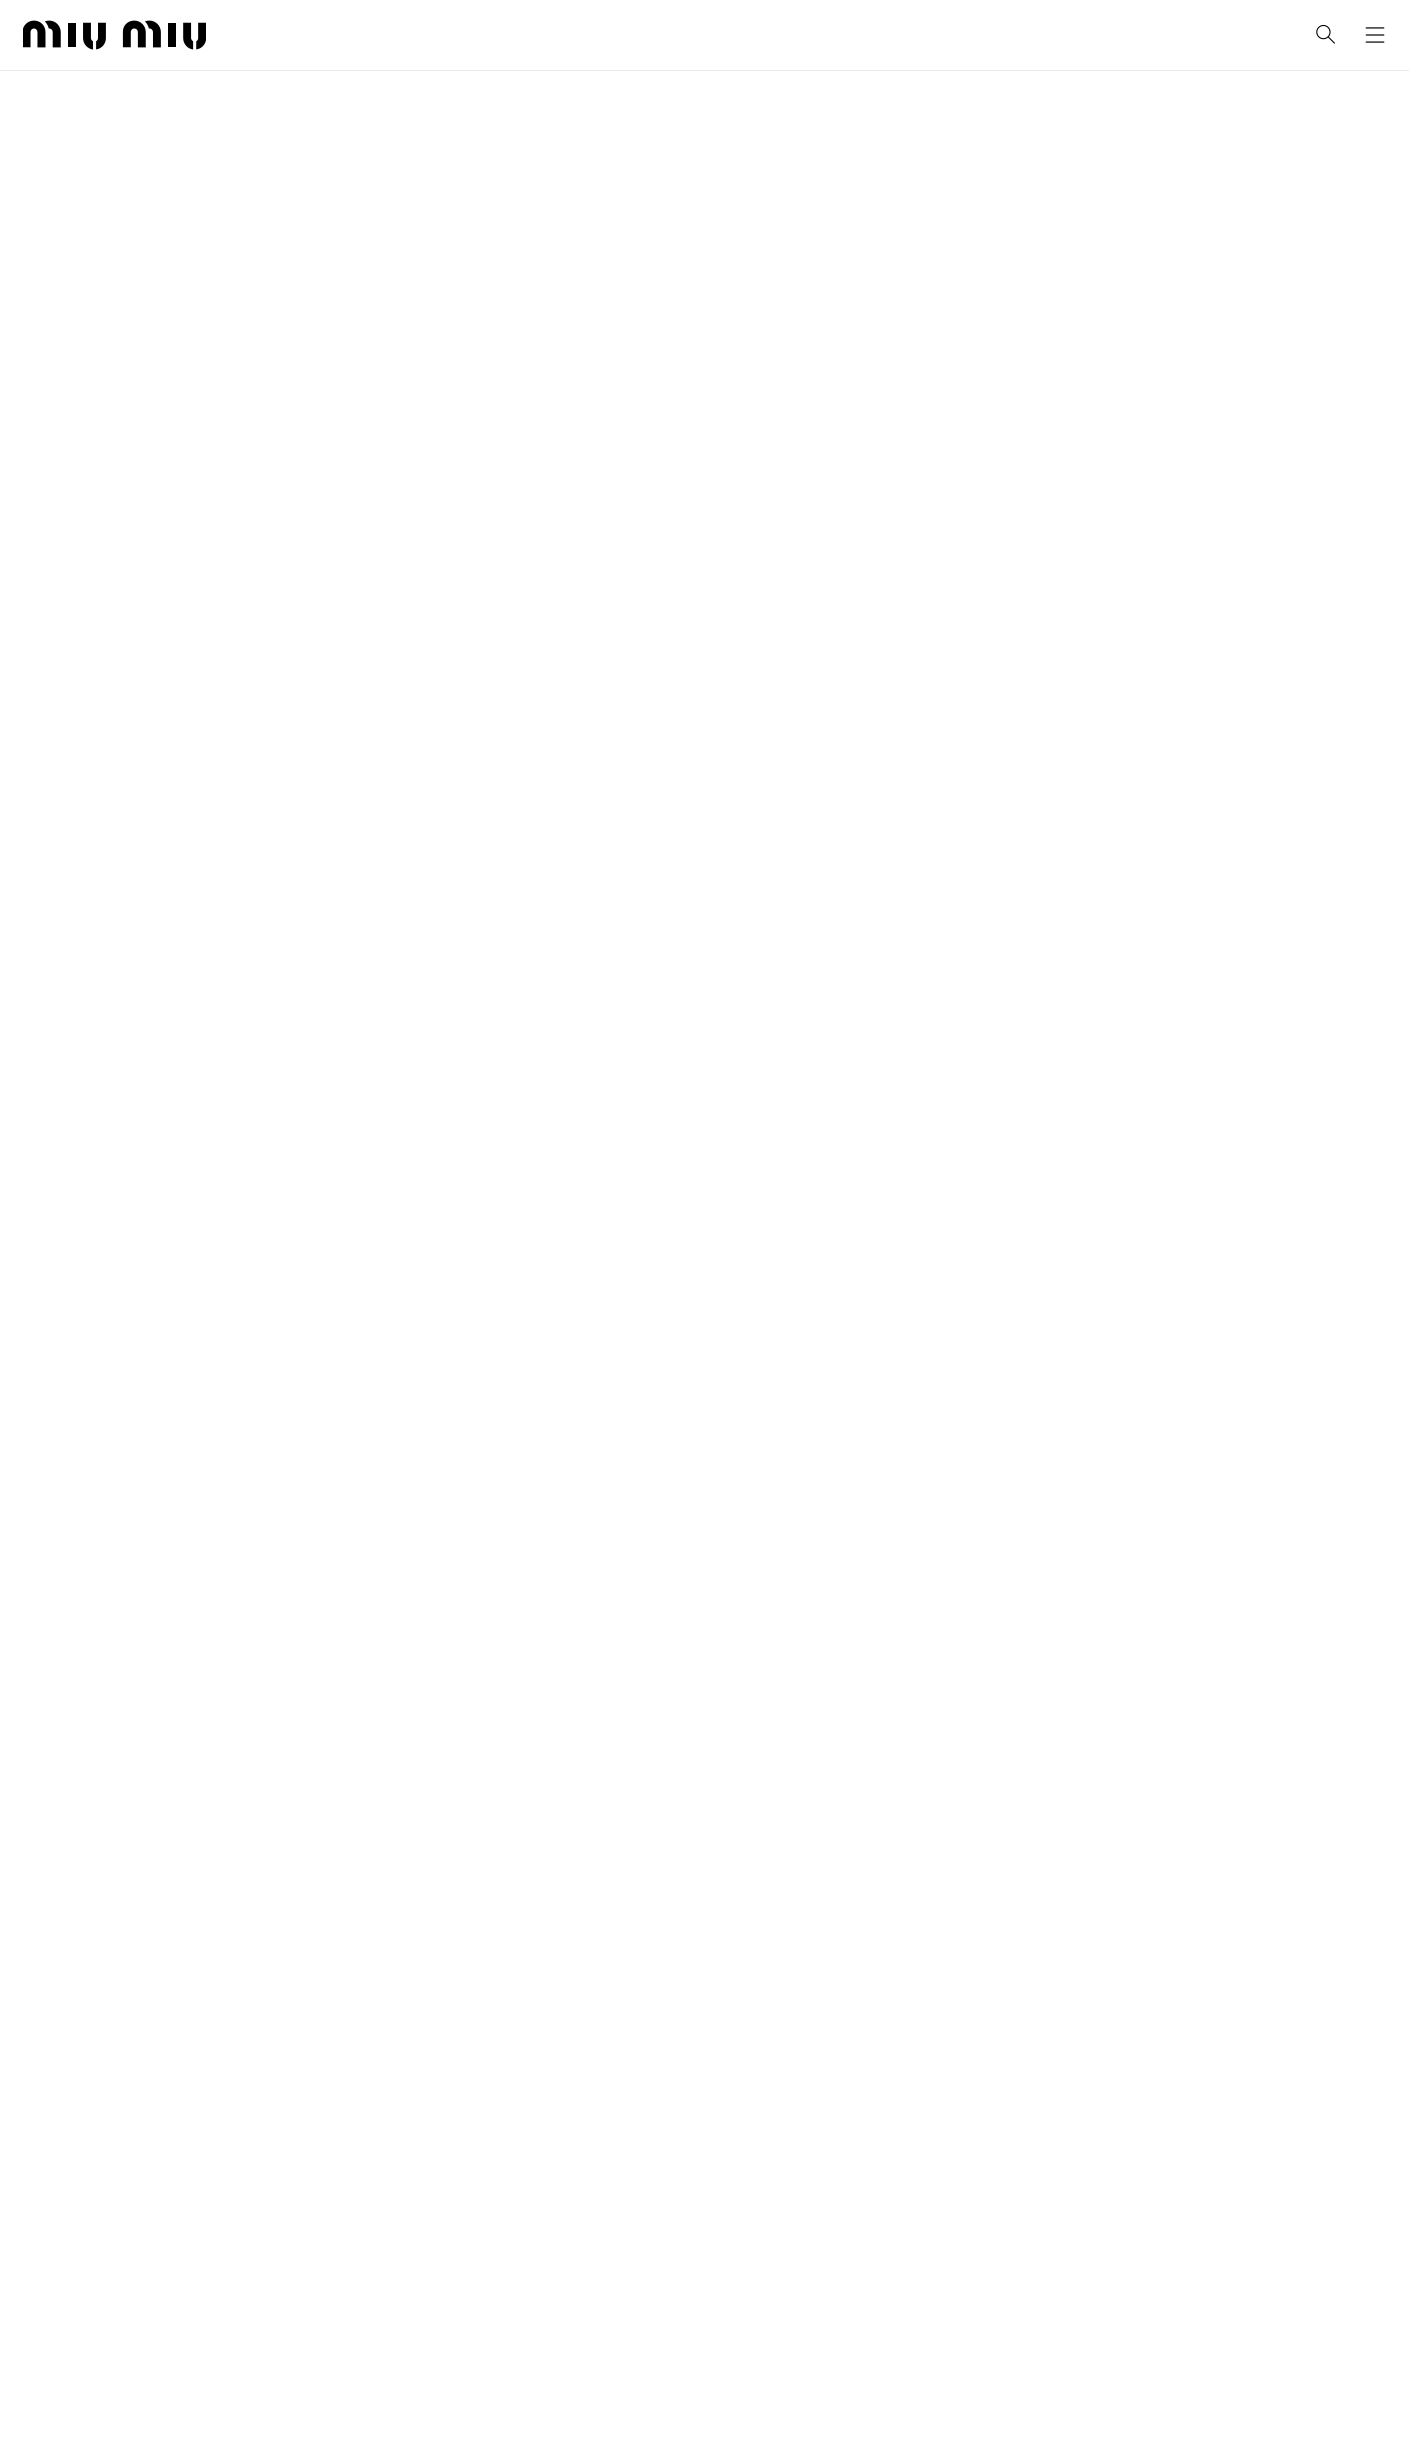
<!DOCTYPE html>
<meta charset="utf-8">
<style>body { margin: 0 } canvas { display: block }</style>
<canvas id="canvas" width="1409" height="2456"></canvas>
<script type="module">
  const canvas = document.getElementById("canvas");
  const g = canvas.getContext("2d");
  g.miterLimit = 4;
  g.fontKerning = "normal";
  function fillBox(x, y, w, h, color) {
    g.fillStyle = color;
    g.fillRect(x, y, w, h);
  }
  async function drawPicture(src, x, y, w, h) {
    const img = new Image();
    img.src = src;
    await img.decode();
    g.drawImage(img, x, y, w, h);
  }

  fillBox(0, 0, 1409, 2456, "#FFFFFF");
  fillBox(0, 70, 1409, 1, "#E9E9E9");
  await drawPicture("pic1.png", 23, 20, 183, 30);
  await drawPicture("pic2.png", 1316, 24, 19, 20);
  await drawPicture("pic3.png", 1365, 27, 20, 16);
</script>
